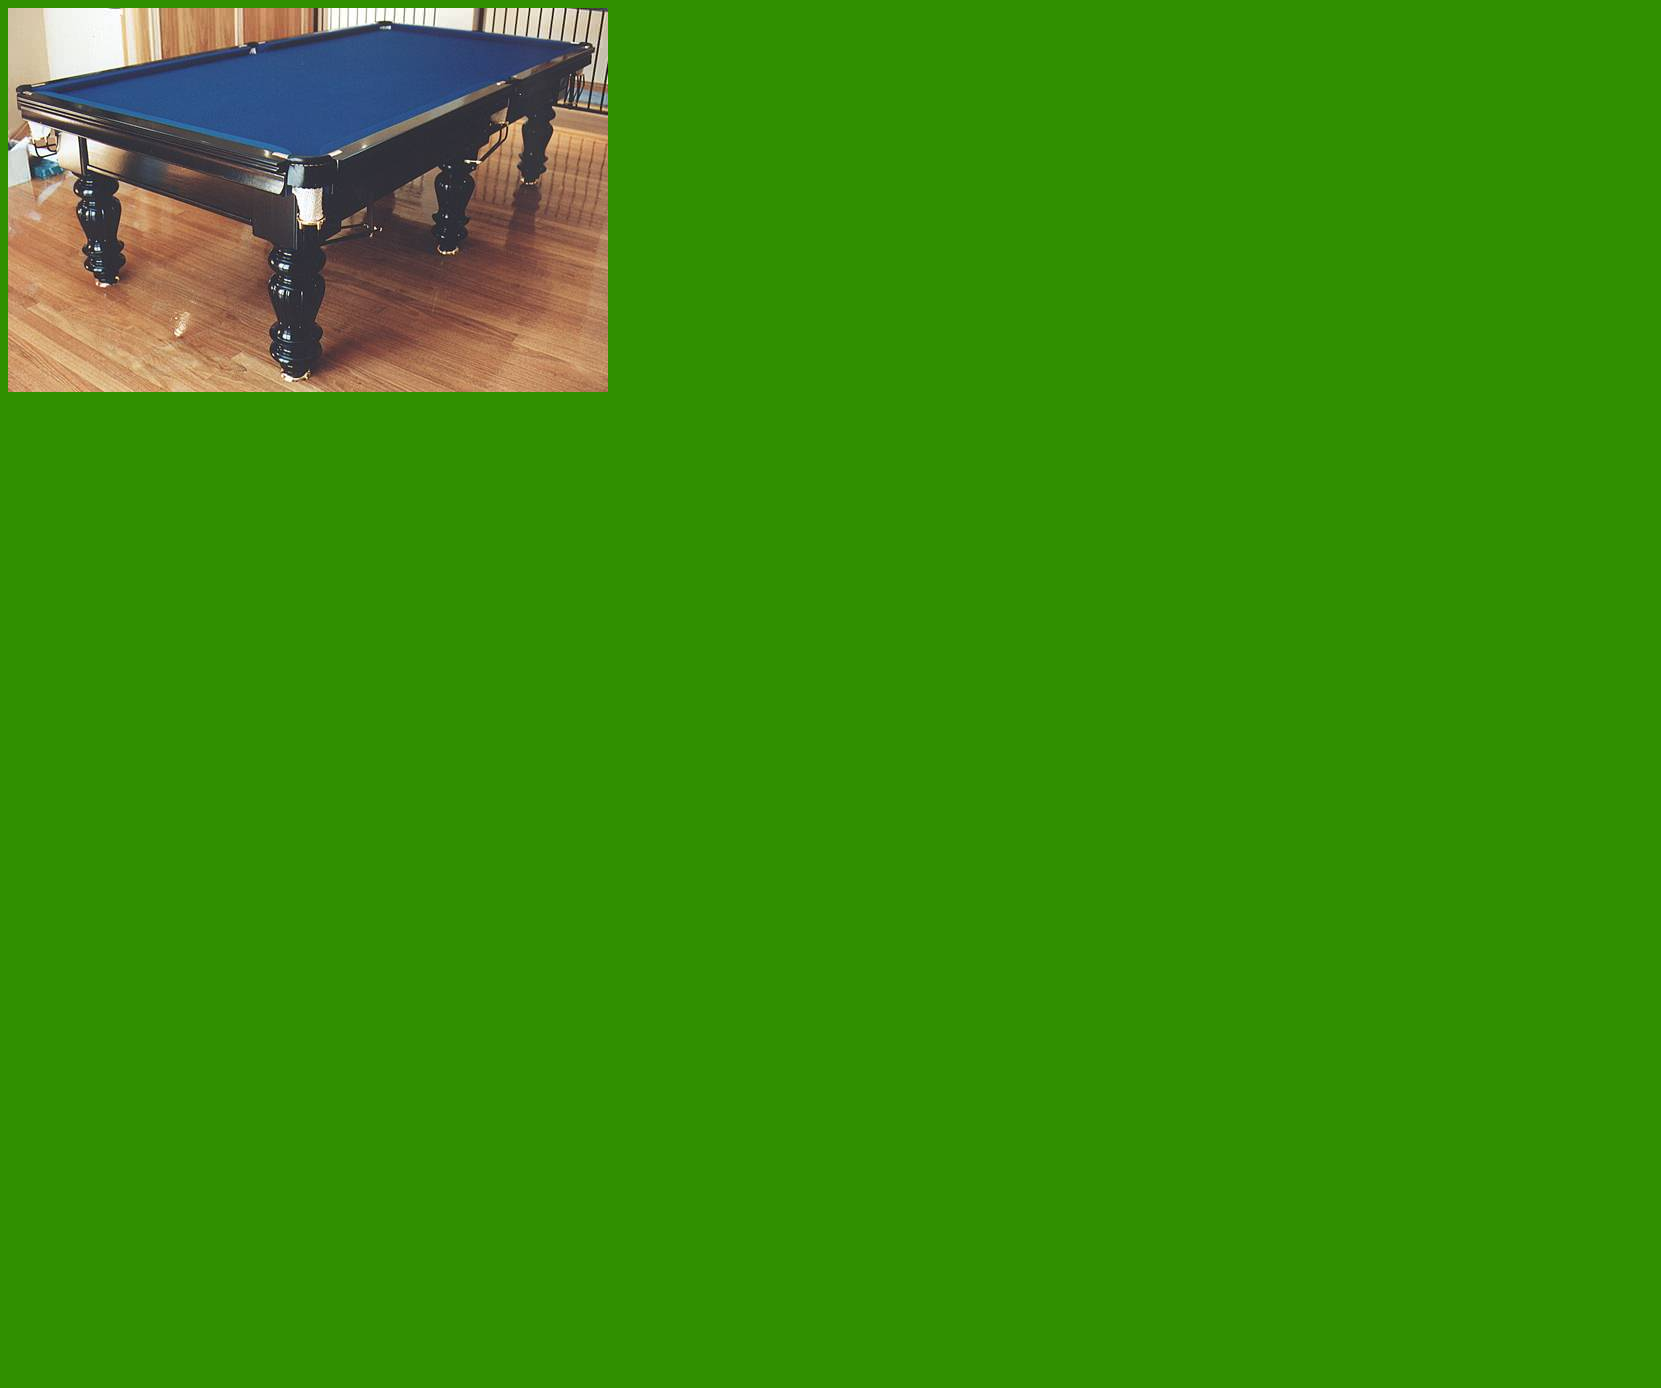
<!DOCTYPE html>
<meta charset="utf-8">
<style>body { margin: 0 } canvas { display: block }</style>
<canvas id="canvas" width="1661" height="1388"></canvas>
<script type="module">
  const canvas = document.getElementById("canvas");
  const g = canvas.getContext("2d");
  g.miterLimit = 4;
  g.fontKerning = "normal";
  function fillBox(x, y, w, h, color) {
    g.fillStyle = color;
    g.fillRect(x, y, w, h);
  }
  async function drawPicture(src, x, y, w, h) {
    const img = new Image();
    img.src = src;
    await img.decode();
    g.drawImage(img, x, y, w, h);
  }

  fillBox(0, 0, 1661, 1388, "#309000");
  await drawPicture("pic1.png", 8, 8, 600, 384);
</script>
